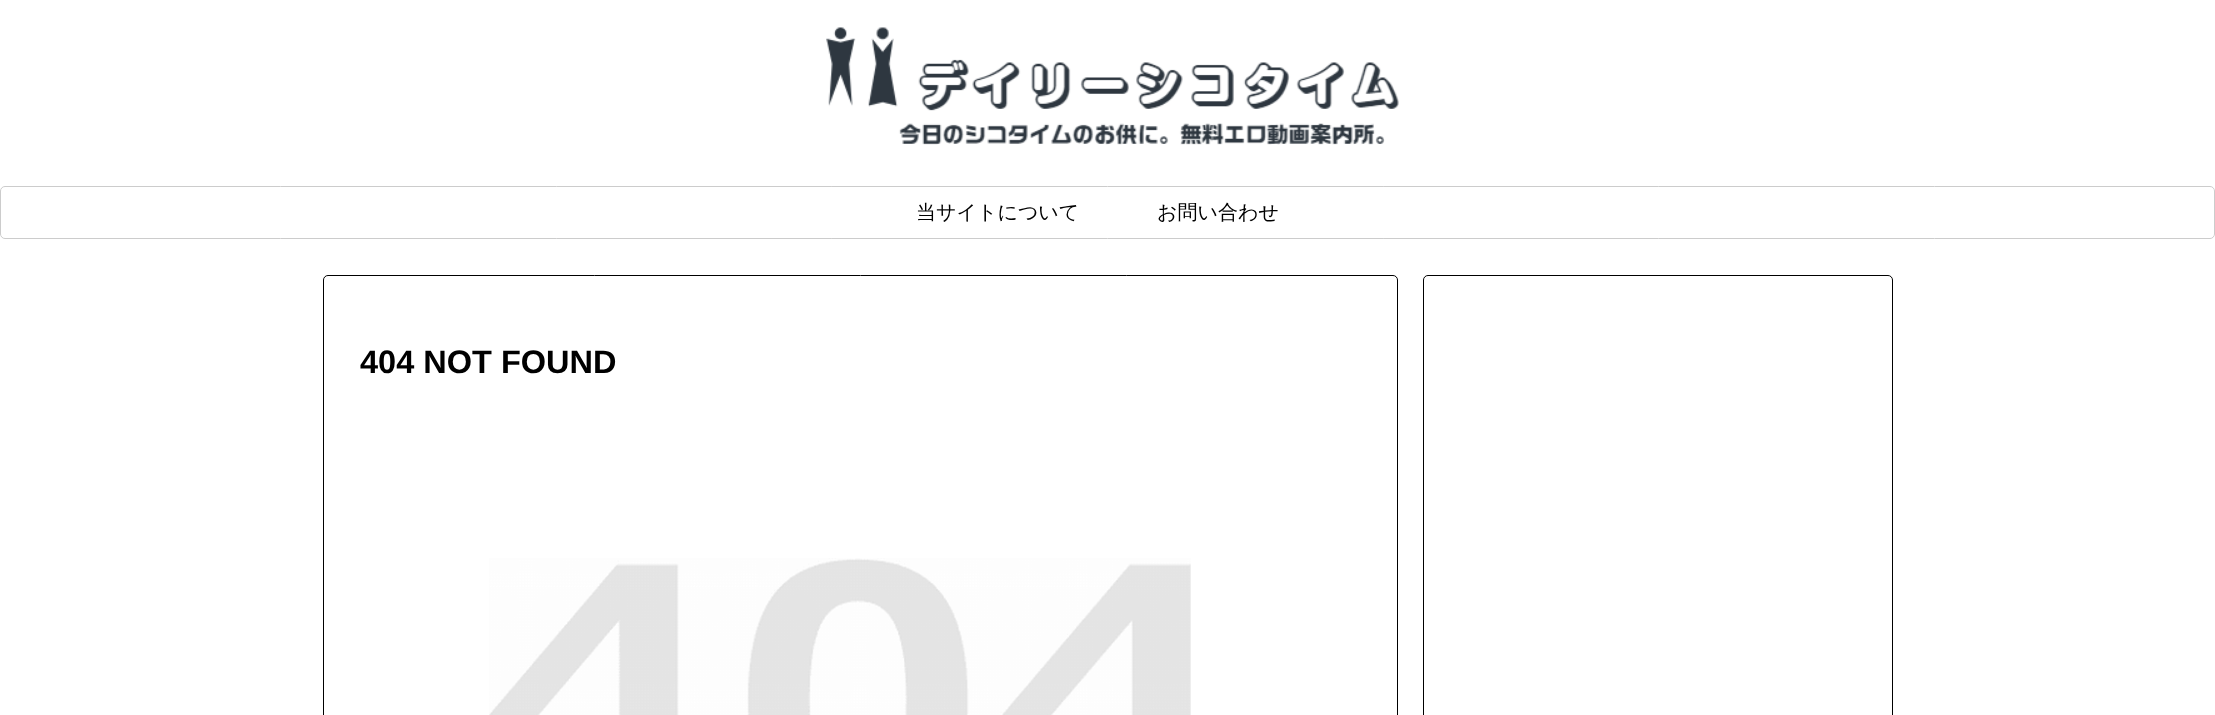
<!DOCTYPE html>
<meta charset="utf-8">
<style>body { margin: 0 } canvas { display: block }</style>
<canvas id="canvas" width="2215" height="715"></canvas>
<script type="module">
  const canvas = document.getElementById("canvas");
  const g = canvas.getContext("2d");
  g.miterLimit = 4;
  g.fontKerning = "normal";
  function drawText(s, x, y, [font, color]) {
    g.font = font;
    g.fillStyle = color;
    g.fillText(s, x, y);
  }
  function fillBox(x, y, w, h, color) {
    g.fillStyle = color;
    g.fillRect(x, y, w, h);
  }
  async function drawPicture(src, x, y, w, h) {
    const img = new Image();
    img.src = src;
    await img.decode();
    g.drawImage(img, x, y, w, h);
  }

  const s1 = ["500 20px WenQuanYi Zen Hei", "#000000"];
  const s2 = ["bold 32.5px Liberation Sans", "#000000"];

  fillBox(0, 0, 2215, 715, "#FFFFFF");
  await drawPicture("pic1.png", 826, 27, 573, 118);
  g.beginPath();
  g.roundRect(0.5, 186.5, 2214, 52, 4.5);
  g.strokeStyle = "#CCCCCC";
  g.stroke();
  drawText("当サイトについて", 916, 219, s1);
  drawText("お問い合わせ", 1157, 219, s1);
  g.beginPath();
  g.roundRect(323.5, 275.5, 1074, 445, 4.5);
  g.strokeStyle = "#000000";
  g.stroke();
  drawText("404 NOT FOUND", 360, 373, s2);
  await drawPicture("pic2.png", 489, 558, 702, 157);
  g.beginPath();
  g.roundRect(1423.5, 275.5, 469, 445, 4.5);
  g.stroke();
</script>
